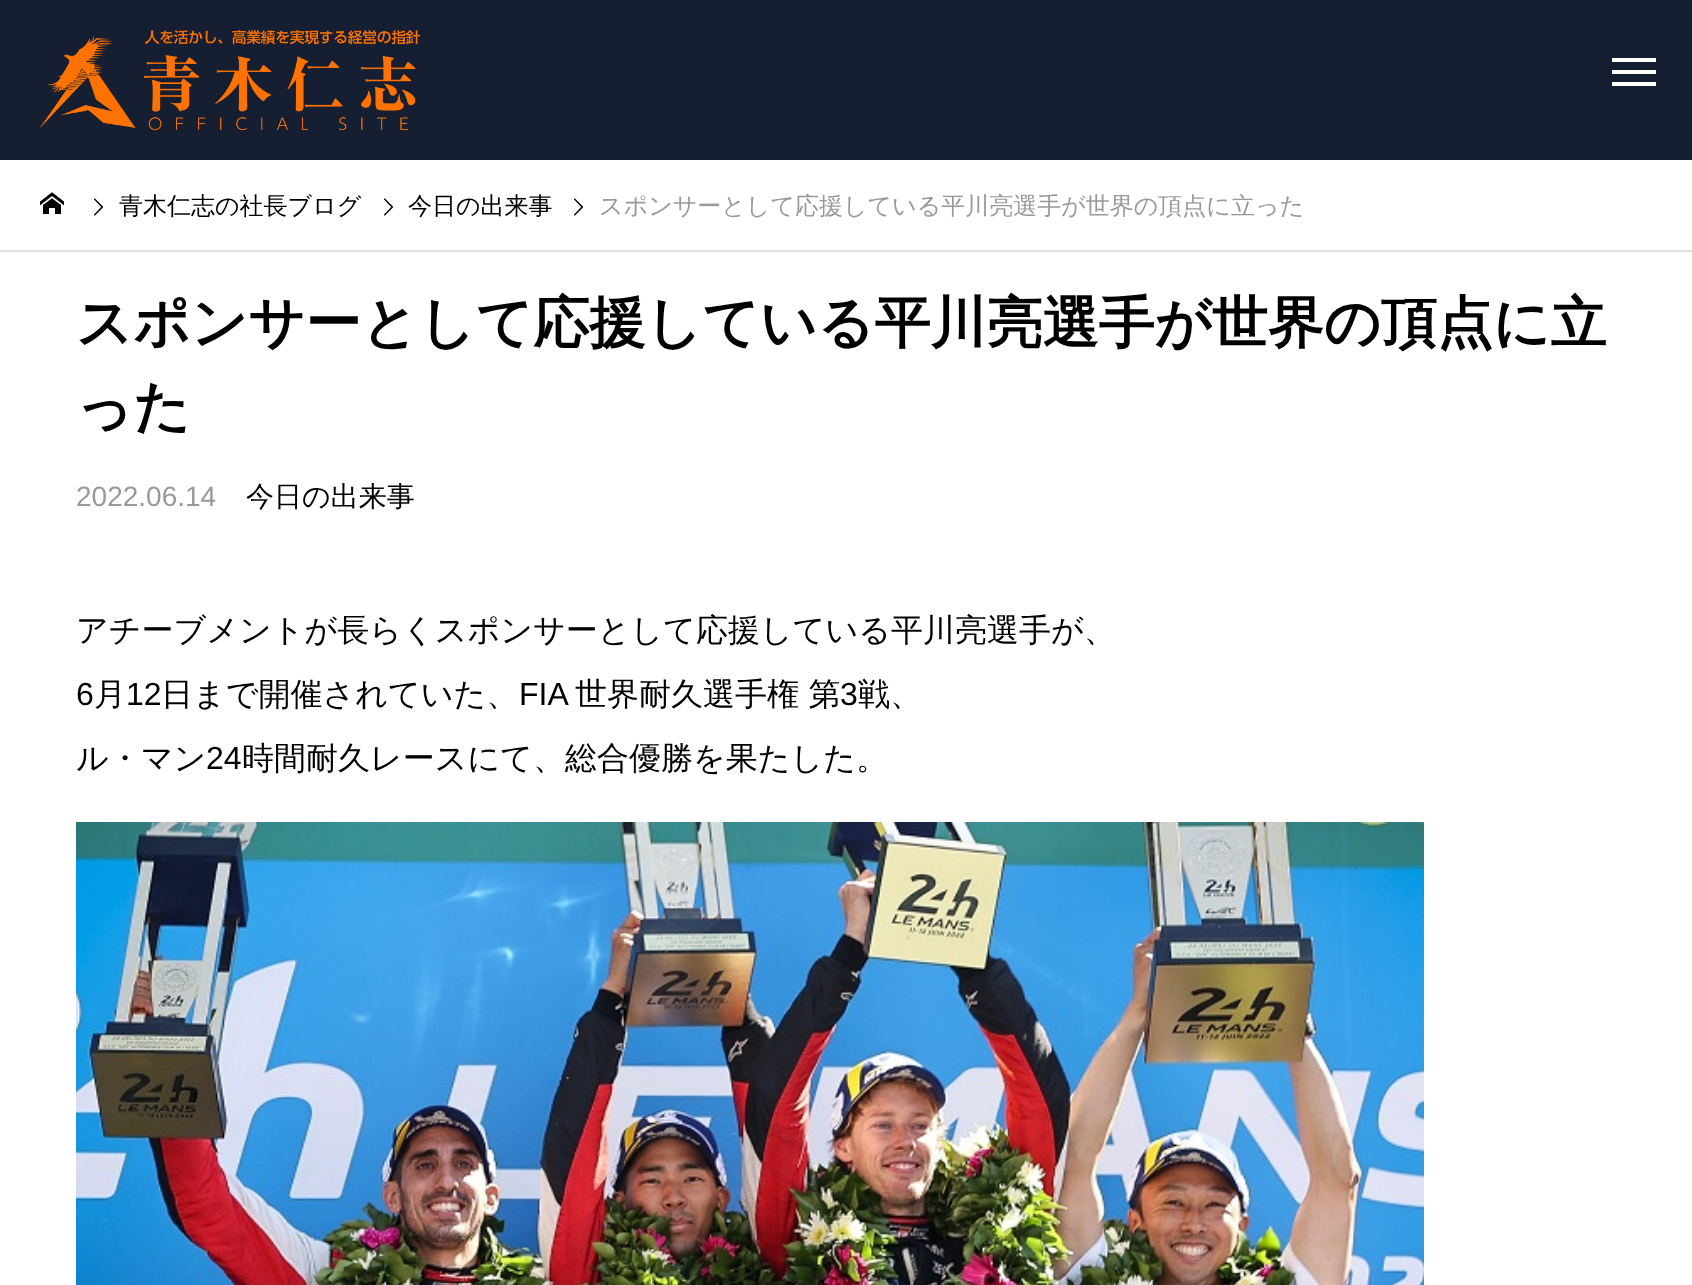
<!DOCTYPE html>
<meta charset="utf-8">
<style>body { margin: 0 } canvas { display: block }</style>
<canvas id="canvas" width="1692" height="1285"></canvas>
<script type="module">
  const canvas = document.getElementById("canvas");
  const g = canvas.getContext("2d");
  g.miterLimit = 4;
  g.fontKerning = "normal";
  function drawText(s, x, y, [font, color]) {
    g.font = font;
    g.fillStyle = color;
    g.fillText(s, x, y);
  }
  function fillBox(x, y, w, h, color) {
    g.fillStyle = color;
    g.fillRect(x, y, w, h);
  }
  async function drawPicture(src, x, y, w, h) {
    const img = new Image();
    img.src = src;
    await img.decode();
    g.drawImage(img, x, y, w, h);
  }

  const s1 = ["500 24px WenQuanYi Zen Hei", "#000000"];
  const s2 = ["500 24px WenQuanYi Zen Hei", "#999999"];
  const s3 = ["bold 56px WenQuanYi Zen Hei", "#000000"];
  const s4 = ["28px Liberation Sans", "#999999"];
  const s5 = ["500 28px WenQuanYi Zen Hei", "#000000"];
  const s6 = ["500 32px WenQuanYi Zen Hei", "#000000"];
  const s7 = ["32px Liberation Sans", "#000000"];

  fillBox(0, 0, 1692, 1285, "#FFFFFF");
  fillBox(0, 0, 1692, 160, "#161E32");
  await drawPicture("pic1.png", 40, 30, 380, 100);
  fillBox(1612, 58, 44, 4, "#FFFFFF");
  fillBox(1612, 70, 44, 4, "#FFFFFF");
  fillBox(1612, 82, 44, 4, "#FFFFFF");
  fillBox(0, 250, 1692, 2, "#DDDDDD");
  await drawPicture("pic2.png", 40, 192, 24, 22);
  await drawPicture("pic3.png", 94, 198, 9, 18);
  drawText("青木仁志の社長ブログ", 119, 214, s1);
  await drawPicture("pic3.png", 384, 198, 9, 18);
  drawText("今日の出来事", 408, 214, s1);
  await drawPicture("pic3.png", 574, 198, 9, 18);
  drawText("スポンサーとして応援している平川亮選手が世界の頂点に立った", 599, 214, s2);
  drawText("スポンサーとして応援している平川亮選手が世界の頂点に立", 76, 342, s3);
  drawText("った", 76, 426, s3);
  drawText("2022.06.14", 76, 506, s4);
  drawText("今日の出来事", 246, 506, s5);
  drawText("アチーブメントが長らくスポンサーとして応援している平川亮選手が、", 76, 641, s6);
  drawText("6", 76, 705, s7);
  drawText("月", 94, 705, s6);
  drawText("12", 126, 705, s7);
  drawText("日まで開催されていた、", 161, 705, s6);
  drawText("FIA", 519, 705, s7);
  drawText("世界耐久選手権 第", 575, 705, s6);
  drawText("3", 840, 705, s7);
  drawText("戦、", 858, 705, s6);
  drawText("ル・マン", 76, 769, s6);
  drawText("24", 206, 769, s7);
  drawText("時間耐久レースにて、総合優勝を果たした。", 242, 769, s6);
  await drawPicture("pic4.png", 76, 822, 1348, 463);
</script>
